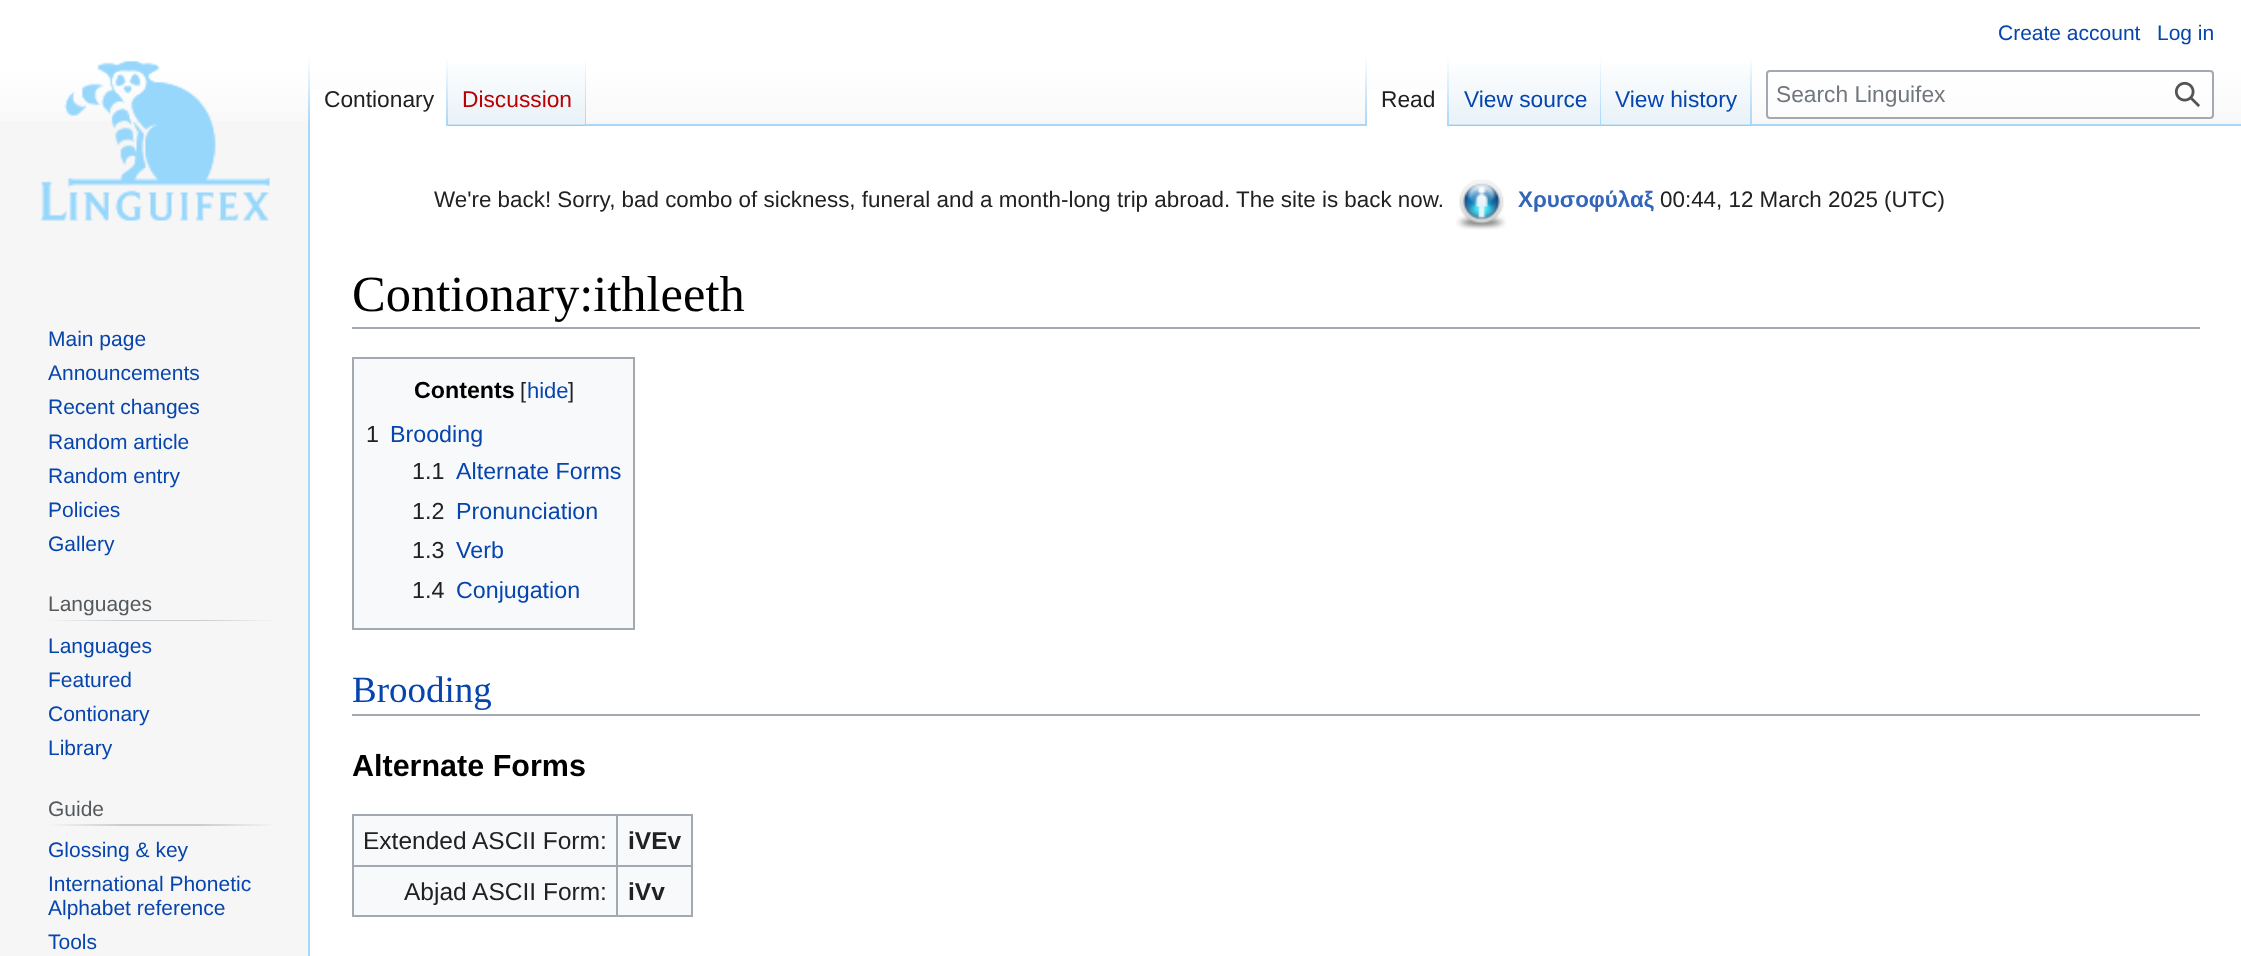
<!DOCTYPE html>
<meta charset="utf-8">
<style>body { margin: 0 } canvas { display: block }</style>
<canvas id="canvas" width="2241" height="956"></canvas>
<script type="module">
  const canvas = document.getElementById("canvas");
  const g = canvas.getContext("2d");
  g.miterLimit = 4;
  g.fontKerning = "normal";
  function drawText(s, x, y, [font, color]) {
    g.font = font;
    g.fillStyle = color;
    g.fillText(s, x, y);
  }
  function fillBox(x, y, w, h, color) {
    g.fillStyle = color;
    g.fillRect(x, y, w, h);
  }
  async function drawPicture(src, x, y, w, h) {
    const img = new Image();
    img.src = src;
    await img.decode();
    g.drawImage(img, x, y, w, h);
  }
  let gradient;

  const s1 = ["21px Liberation Sans", "#0645AD"];
  const s2 = ["22.75px Liberation Sans", "#202122"];
  const s3 = ["22.75px Liberation Sans", "#BA0000"];
  const s4 = ["22.75px Liberation Sans", "#0645AD"];
  const s5 = ["22.75px Liberation Sans", "#72777D"];
  const s6 = ["21px Liberation Sans", "#54595D"];
  const s7 = ["22.4px Liberation Sans", "#202122"];
  const s8 = ["bold 22.4px Liberation Sans", "#3366BB"];
  const s9 = ["50.5px Liberation Serif", "#000000"];
  const s10 = ["bold 23.25px Liberation Sans", "#000000"];
  const s11 = ["22px Liberation Sans", "#202122"];
  const s12 = ["22px Liberation Sans", "#0645AD"];
  const s13 = ["23.25px Liberation Sans", "#202122"];
  const s14 = ["23.25px Liberation Sans", "#0645AD"];
  const s15 = ["37px Liberation Serif", "#0645AD"];
  const s16 = ["bold 30.5px Liberation Sans", "#000000"];
  const s17 = ["24.5px Liberation Sans", "#202122"];
  const s18 = ["bold 24.5px Liberation Sans", "#202122"];

  fillBox(0, 0, 2241, 956, "#F6F6F6");
  gradient = g.createLinearGradient(1121, 0, 1121, 140);
  gradient.addColorStop(0.5, "#FFFFFF");
  gradient.addColorStop(1, "#F6F6F6");
  g.fillStyle = gradient;
  g.fillRect(0, 0, 2241, 121);
  drawText("Create account", 1998, 40, s1);
  drawText("Log in", 2157, 40, s1);
  fillBox(308, 124, 2, 832, "#A7D7F9");
  gradient = g.createLinearGradient(309, 56, 309, 126);
  gradient.addColorStop(0, "rgba(167, 215, 249, 0)");
  gradient.addColorStop(1, "#A7D7F9");
  g.fillStyle = gradient;
  g.fillRect(308, 56, 2, 70);
  fillBox(310, 89, 136, 37, "#FFFFFF");
  gradient = g.createLinearGradient(447, 56, 447, 126);
  gradient.addColorStop(0, "#FFFFFF");
  gradient.addColorStop(1, "#A7D7F9");
  g.fillStyle = gradient;
  g.fillRect(446, 56, 2, 70);
  drawText("Contionary", 324, 107, s2);
  gradient = g.createLinearGradient(517, 126, 517, 56);
  gradient.addColorStop(0, "#77C1F6");
  gradient.addColorStop(0.03, "#E8F2F8");
  gradient.addColorStop(1, "#FFFFFF");
  g.fillStyle = gradient;
  g.fillRect(448, 63, 138, 63);
  gradient = g.createLinearGradient(585, 56, 585, 126);
  gradient.addColorStop(0, "rgba(167, 215, 249, 0)");
  gradient.addColorStop(1, "#A7D7F9");
  g.fillStyle = gradient;
  g.fillRect(585, 56, 1, 70);
  drawText("Discussion", 462, 107, s3);
  fillBox(586, 124, 1655, 2, "#A7D7F9");
  gradient = g.createLinearGradient(1366, 56, 1366, 126);
  gradient.addColorStop(0, "rgba(167, 215, 249, 0)");
  gradient.addColorStop(1, "#A7D7F9");
  g.fillStyle = gradient;
  g.fillRect(1365, 56, 2, 70);
  fillBox(1367, 89, 80, 37, "#FFFFFF");
  gradient = g.createLinearGradient(1448, 56, 1448, 126);
  gradient.addColorStop(0, "#FFFFFF");
  gradient.addColorStop(1, "#A7D7F9");
  g.fillStyle = gradient;
  g.fillRect(1447, 56, 2, 70);
  drawText("Read", 1381, 107, s2);
  gradient = g.createLinearGradient(1525, 126, 1525, 56);
  gradient.addColorStop(0, "#77C1F6");
  gradient.addColorStop(0.03, "#E8F2F8");
  gradient.addColorStop(1, "#FFFFFF");
  g.fillStyle = gradient;
  g.fillRect(1449, 63, 152, 63);
  gradient = g.createLinearGradient(1600, 56, 1600, 126);
  gradient.addColorStop(0, "rgba(167, 215, 249, 0)");
  gradient.addColorStop(1, "#A7D7F9");
  g.fillStyle = gradient;
  g.fillRect(1600, 56, 1, 70);
  drawText("View source", 1464, 107, s4);
  gradient = g.createLinearGradient(1677, 126, 1677, 56);
  gradient.addColorStop(0, "#77C1F6");
  gradient.addColorStop(0.03, "#E8F2F8");
  gradient.addColorStop(1, "#FFFFFF");
  g.fillStyle = gradient;
  g.fillRect(1601, 63, 151, 63);
  gradient = g.createLinearGradient(1751, 56, 1751, 126);
  gradient.addColorStop(0, "rgba(167, 215, 249, 0)");
  gradient.addColorStop(1, "#A7D7F9");
  g.fillStyle = gradient;
  g.fillRect(1750, 56, 2, 70);
  drawText("View history", 1615, 107, s4);
  g.fillStyle = "rgba(255, 255, 255, 0.5)";
  g.beginPath();
  g.roundRect(1767, 71, 446, 47, 3);
  g.fill();
  g.strokeStyle = "#A2A9B1";
  g.lineWidth = 2;
  g.stroke();
  drawText("Search Linguifex", 1776, 102, s5);
  await drawPicture("pic1.png", 2174, 81, 26, 26);
  await drawPicture("pic2.png", 40, 60, 230, 161);
  drawText("Main page", 48, 346, s1);
  drawText("Announcements", 48, 380, s1);
  drawText("Recent changes", 48, 414, s1);
  drawText("Random article", 48, 449, s1);
  drawText("Random entry", 48, 483, s1);
  drawText("Policies", 48, 517, s1);
  drawText("Gallery", 48, 551, s1);
  gradient = g.createLinearGradient(47, 620, 277, 620);
  gradient.addColorStop(0, "#F6F6F6");
  gradient.addColorStop(0.33, "#C8CCD1");
  gradient.addColorStop(0.66, "#C8CCD1");
  gradient.addColorStop(1, "#F6F6F6");
  g.fillStyle = gradient;
  g.fillRect(47, 620, 230, 1);
  drawText("Languages", 48, 611, s6);
  drawText("Languages", 48, 653, s1);
  drawText("Featured", 48, 687, s1);
  drawText("Contionary", 48, 721, s1);
  drawText("Library", 48, 755, s1);
  gradient = g.createLinearGradient(47, 825, 277, 825);
  gradient.addColorStop(0, "#F6F6F6");
  gradient.addColorStop(0.33, "#C8CCD1");
  gradient.addColorStop(0.66, "#C8CCD1");
  gradient.addColorStop(1, "#F6F6F6");
  g.fillStyle = gradient;
  g.fillRect(47, 824, 230, 2);
  drawText("Guide", 48, 816, s6);
  drawText("Glossing & key", 48, 857, s1);
  drawText("International Phonetic", 48, 891, s1);
  drawText("Alphabet reference", 48, 915, s1);
  drawText("Tools", 48, 949, s1);
  fillBox(310, 126, 1931, 830, "#FFFFFF");
  drawText("We're back! Sorry, bad combo of sickness, funeral and a month-long trip abroad. The site is back now.", 434, 207, s7);
  await drawPicture("pic3.png", 1456, 179, 50, 51);
  drawText("Χρυσοφύλαξ", 1518, 207, s8);
  drawText("00:44, 12 March 2025 (UTC)", 1660, 207, s7);
  fillBox(352, 327, 1848, 2, "#A2A9B1");
  drawText("Contionary:ithleeth", 352, 311, s9);
  g.fillStyle = "#F8F9FA";
  g.beginPath();
  g.rect(353, 358, 281, 271);
  g.fill();
  g.stroke();
  drawText("Contents", 414, 398, s10);
  drawText("[", 520, 398, s11);
  drawText("hide", 527, 398, s12);
  drawText("]", 568, 398, s11);
  drawText("1", 366, 442, s13);
  drawText("Brooding", 390, 442, s14);
  drawText("1.1", 412, 479, s13);
  drawText("Alternate Forms", 456, 479, s14);
  drawText("1.2", 412, 519, s13);
  drawText("Pronunciation", 456, 519, s14);
  drawText("1.3", 412, 558, s13);
  drawText("Verb", 456, 558, s14);
  drawText("1.4", 412, 598, s13);
  drawText("Conjugation", 456, 598, s14);
  fillBox(352, 714, 1848, 2, "#A2A9B1");
  drawText("Brooding", 352, 702, s15);
  drawText("Alternate Forms", 352, 776, s16);
  fillBox(354, 816, 337, 99, "#F8F9FA");
  fillBox(352, 814, 341, 2, "#A2A9B1");
  fillBox(691, 814, 2, 103, "#A2A9B1");
  fillBox(352, 915, 341, 2, "#A2A9B1");
  fillBox(352, 814, 2, 103, "#A2A9B1");
  drawText("Extended ASCII Form:", 363, 849, s17);
  fillBox(616, 865, 77, 2, "#A2A9B1");
  fillBox(616, 865, 2, 52, "#A2A9B1");
  fillBox(352, 865, 266, 2, "#A2A9B1");
  fillBox(616, 814, 2, 52, "#A2A9B1");
  drawText("iVEv", 628, 849, s18);
  drawText("Abjad ASCII Form:", 404, 900, s17);
  drawText("iVv", 628, 900, s18);
</script>
